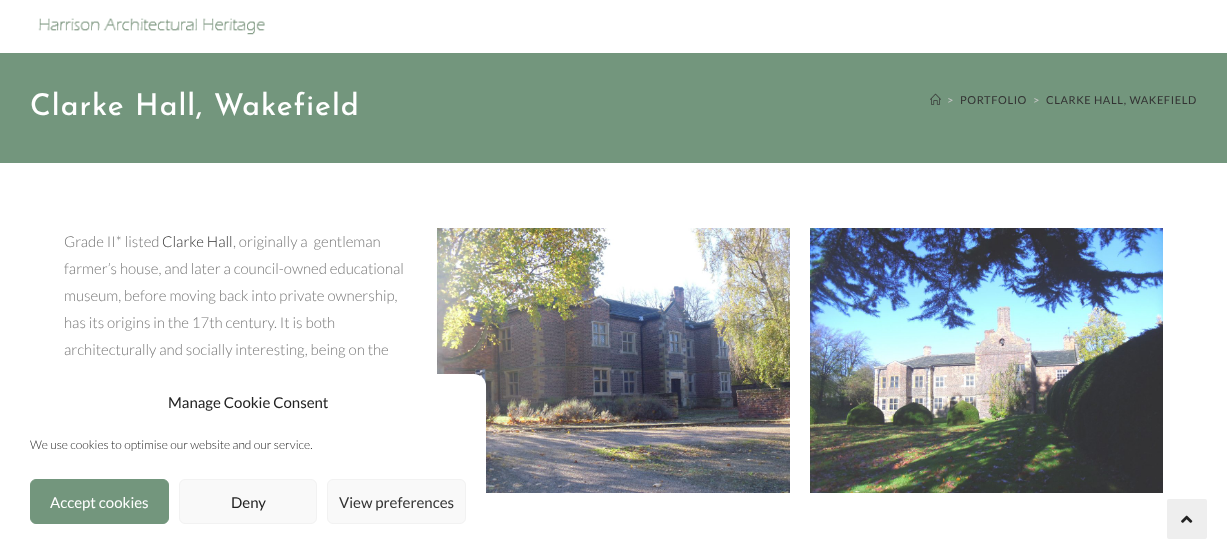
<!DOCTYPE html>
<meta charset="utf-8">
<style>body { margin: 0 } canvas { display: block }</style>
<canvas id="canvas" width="1227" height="559"></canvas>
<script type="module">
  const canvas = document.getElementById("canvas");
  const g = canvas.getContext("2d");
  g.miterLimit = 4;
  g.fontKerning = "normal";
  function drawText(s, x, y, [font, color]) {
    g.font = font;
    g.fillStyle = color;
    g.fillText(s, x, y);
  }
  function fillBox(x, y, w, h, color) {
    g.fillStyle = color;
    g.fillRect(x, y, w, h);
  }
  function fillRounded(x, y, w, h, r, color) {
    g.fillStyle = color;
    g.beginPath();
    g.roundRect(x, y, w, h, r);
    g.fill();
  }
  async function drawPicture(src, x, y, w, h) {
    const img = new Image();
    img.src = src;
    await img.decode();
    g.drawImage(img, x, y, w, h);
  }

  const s1 = ["500 30px Josefin Sans", "#FFFFFF"];
  const s2 = ["11px Lato", "#C6C6C6"];
  const s3 = ["11px Lato", "#333333"];
  const s4 = ["300 15px Lato", "#777777"];
  const s5 = ["300 15px Lato", "#333333"];
  const s6 = ["15px Lato", "#222222"];
  const s7 = ["300 12px Lato", "#222222"];
  const s8 = ["15px Lato", "#FFFFFF"];
  const s9 = ["15px Lato", "#333333"];

  fillBox(0, 0, 1227, 559, "#FFFFFF");
  await drawPicture("pic1.png", 38, 18, 227, 17);
  fillBox(0, 53, 1227, 110, "#73967D");
  g.letterSpacing = "1px";
  drawText("Clarke Hall, Wakefield", 30, 115, s1);
  await drawPicture("pic2.png", 930, 93, 11, 12);
  g.letterSpacing = "0.6px";
  drawText(">", 947, 104, s2);
  drawText("PORTFOLIO", 960, 104, s3);
  drawText(">", 1033, 104, s2);
  drawText("CLARKE HALL, WAKEFIELD", 1046, 104, s3);
  g.letterSpacing = "0px";
  drawText("Grade II* listed", 64, 247, s4);
  drawText("Clarke Hall", 162, 247, s5);
  drawText(", originally a  gentleman", 233, 247, s4);
  drawText("farmer’s house, and later a council-owned educational", 64, 274, s4);
  drawText("museum, before moving back into private ownership,", 64, 301, s4);
  drawText("has its origins in the 17th century. It is both", 64, 328, s4);
  drawText("architecturally and socially interesting, being on the", 64, 355, s4);
  await drawPicture("pic3.png", 437, 228, 353, 265);
  await drawPicture("pic4.png", 810, 228, 353, 265);
  fillRounded(10, 374, 476, 175, 12, "#FFFFFF");
  drawText("Manage Cookie Consent", 168, 408, s6);
  drawText("We use cookies to optimise our website and our service.", 30, 449, s7);
  g.fillStyle = "#73967D";
  g.beginPath();
  g.roundRect(30.5, 479.5, 138, 44, 5.5);
  g.fill();
  g.strokeStyle = "#73967D";
  g.stroke();
  drawText("Accept cookies", 50, 508, s8);
  g.fillStyle = "#F9F9F9";
  g.beginPath();
  g.roundRect(179.5, 479.5, 137, 44, 5.5);
  g.fill();
  g.strokeStyle = "#F2F2F2";
  g.stroke();
  drawText("Deny", 231, 508, s6);
  g.fillStyle = "#F9F9F9";
  g.beginPath();
  g.roundRect(327.5, 479.5, 138, 44, 5.5);
  g.fill();
  g.stroke();
  drawText("View preferences", 339, 508, s9);
  fillRounded(1167, 499, 40, 40, 2, "#EEEEEE");
  await drawPicture("pic5.png", 1181, 515, 12, 8);
</script>
